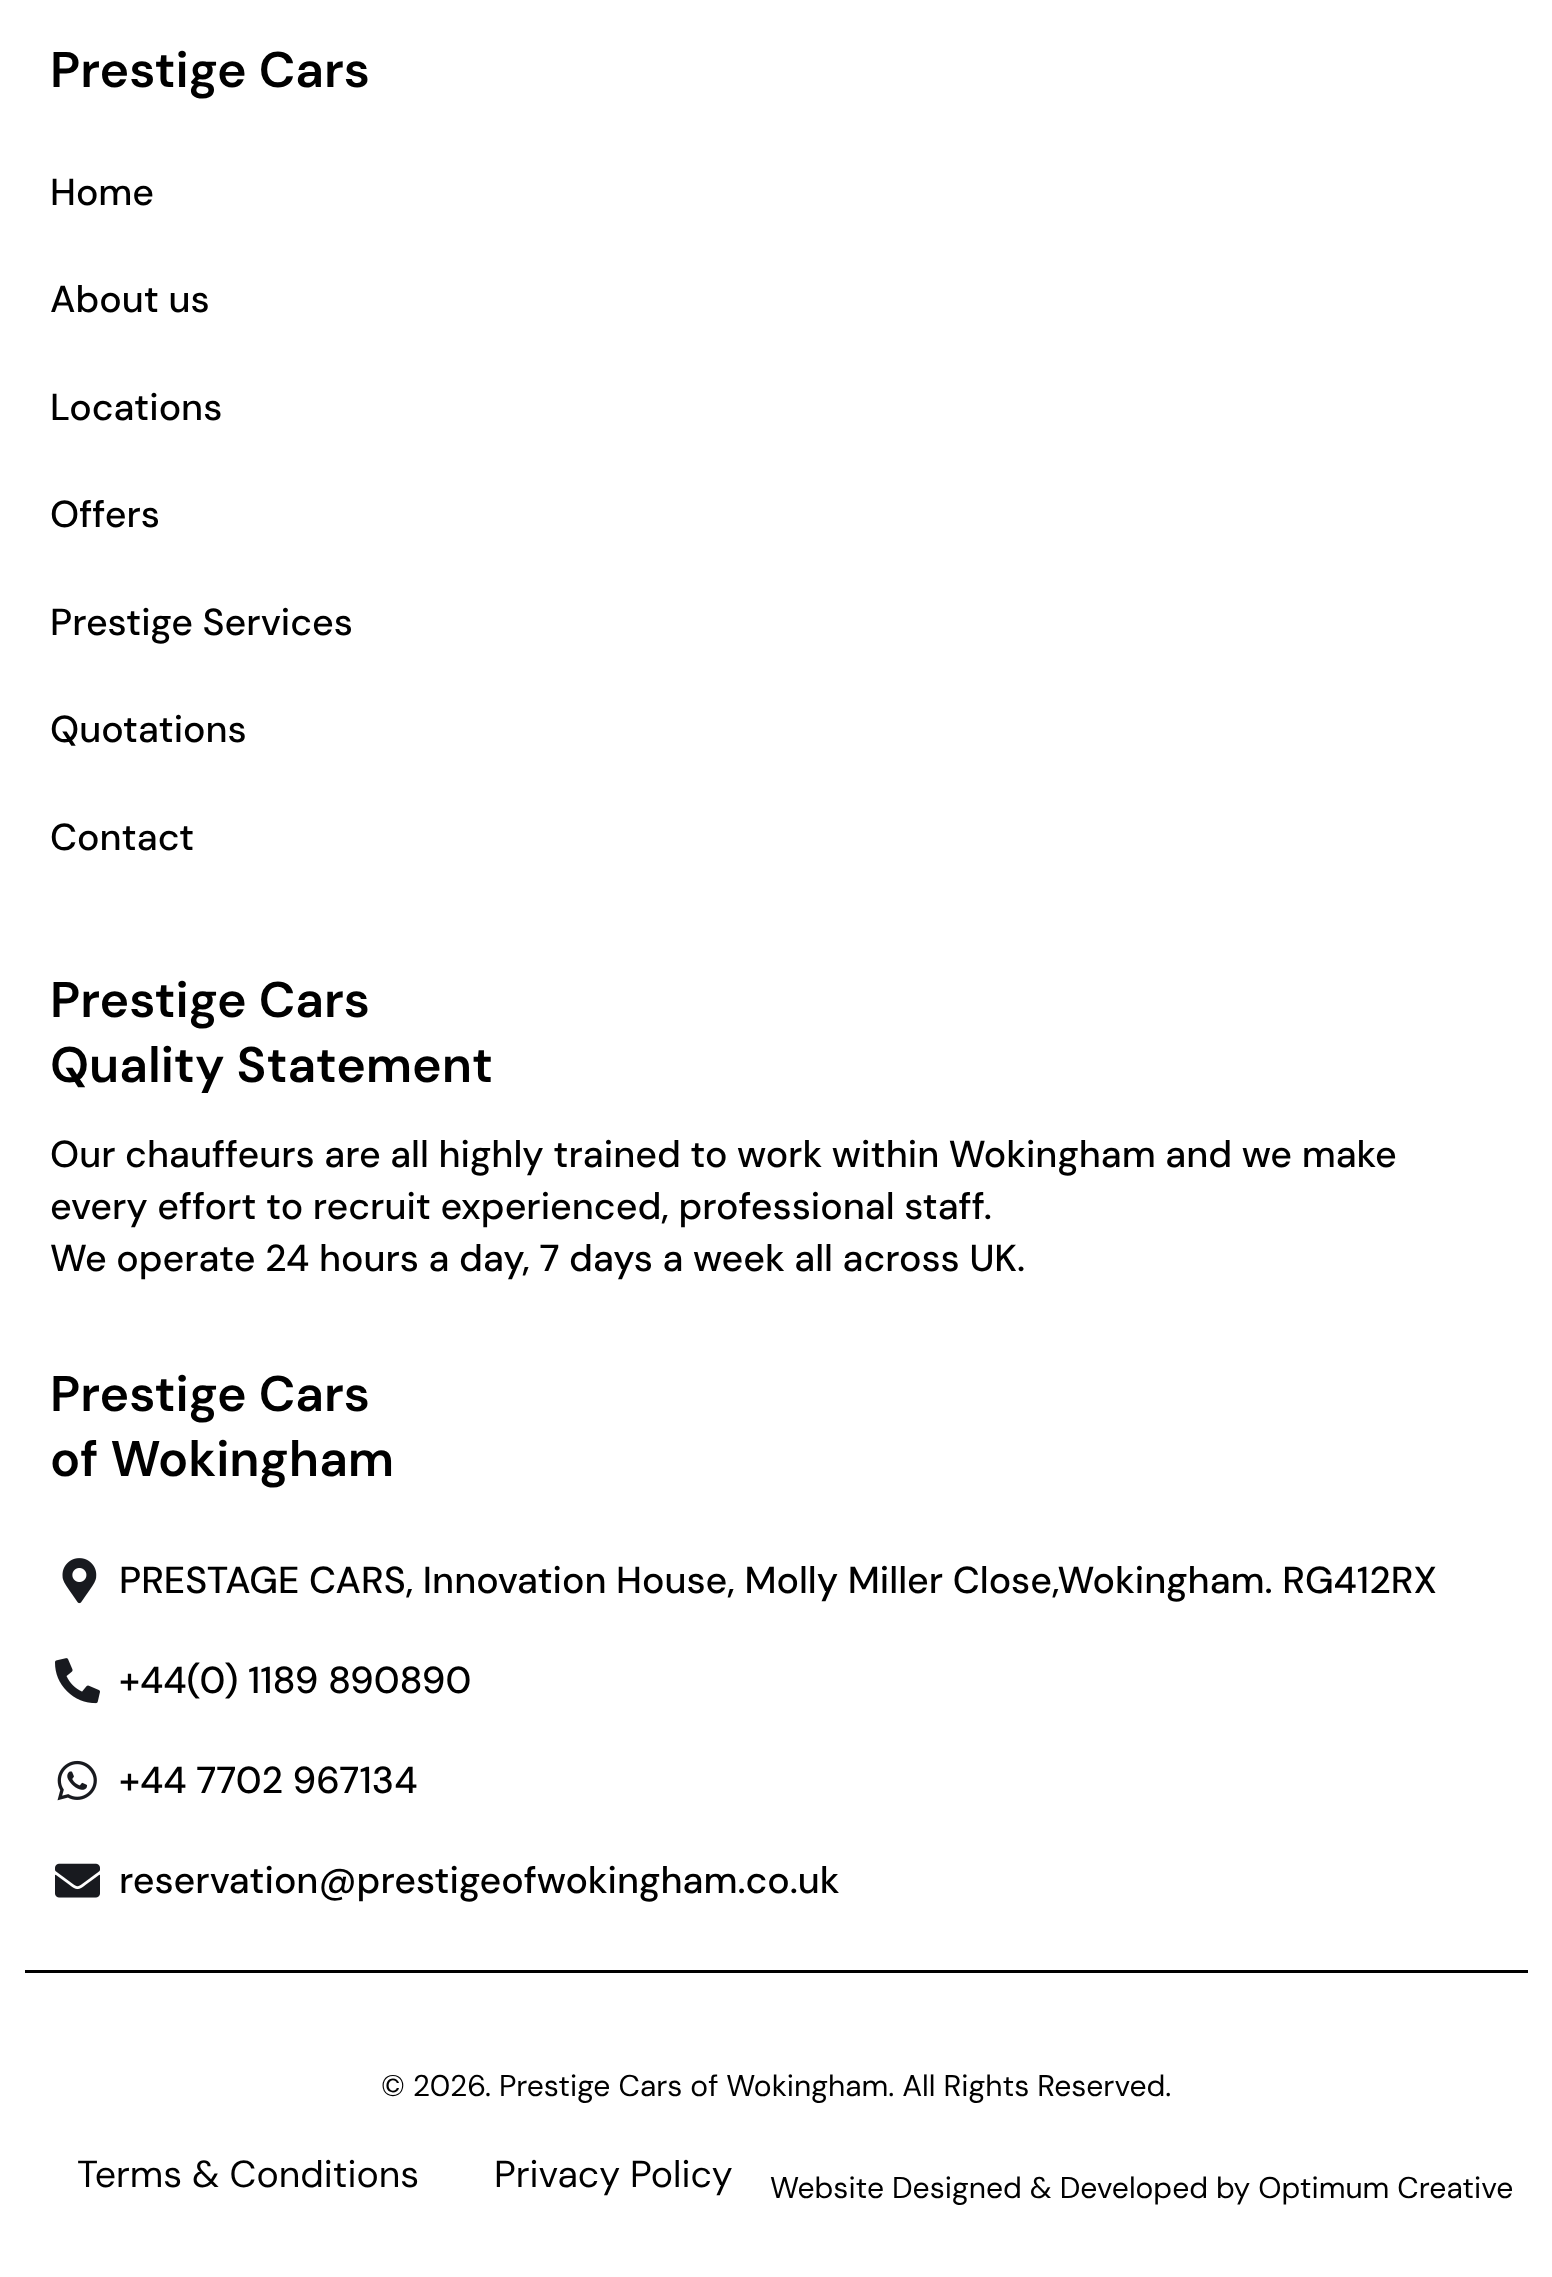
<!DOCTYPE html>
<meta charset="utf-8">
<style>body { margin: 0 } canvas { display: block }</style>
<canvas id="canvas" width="1552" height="2277"></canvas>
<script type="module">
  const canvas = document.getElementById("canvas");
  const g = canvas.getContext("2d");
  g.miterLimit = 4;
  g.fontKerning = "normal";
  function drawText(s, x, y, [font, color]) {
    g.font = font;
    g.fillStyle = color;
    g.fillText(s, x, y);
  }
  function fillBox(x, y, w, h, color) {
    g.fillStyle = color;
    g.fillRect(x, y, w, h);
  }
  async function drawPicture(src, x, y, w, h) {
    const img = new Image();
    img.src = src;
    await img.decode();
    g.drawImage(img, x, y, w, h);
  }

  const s1 = ["600 50px DM Sans", "#000000"];
  const s2 = ["500 37.5px DM Sans", "#000000"];
  const s3 = ["30px DM Sans", "#000000"];
  const s4 = ["37.5px DM Sans", "#000000"];

  fillBox(0, 0, 1552, 2277, "#FFFFFF");
  drawText("Prestige Cars", 50, 87, s1);
  drawText("Home", 50, 205, s2);
  drawText("About us", 50, 312, s2);
  drawText("Locations", 50, 420, s2);
  drawText("Offers", 50, 527, s2);
  drawText("Prestige Services", 50, 635, s2);
  drawText("Quotations", 50, 742, s2);
  drawText("Contact", 50, 850, s2);
  drawText("Prestige Cars", 50, 1017, s1);
  drawText("Quality Statement", 50, 1082, s1);
  drawText("Our chauffeurs are all highly trained to work within Wokingham and we make", 50, 1167, s2);
  drawText("every effort to recruit experienced, professional staff.", 50, 1219, s2);
  drawText("We operate 24 hours a day, 7 days a week all across UK.", 50, 1271, s2);
  drawText("Prestige Cars", 50, 1411, s1);
  drawText("of Wokingham", 50, 1476, s1);
  await drawPicture("pic1.png", 62, 1558, 35, 46);
  drawText("PRESTAGE CARS, Innovation House, Molly Miller Close,Wokingham. RG412RX", 119, 1593, s2);
  await drawPicture("pic2.png", 55, 1658, 45, 46);
  drawText("+44(0) 1189 890890", 119, 1693, s2);
  await drawPicture("pic3.png", 57, 1760, 40, 41);
  drawText("+44 7702 967134", 119, 1793, s2);
  await drawPicture("pic4.png", 55, 1863, 45, 35);
  drawText("reservation@prestigeofwokingham.co.uk", 119, 1893, s2);
  fillBox(25, 1970, 1503, 3, "#000000");
  drawText("© 2026. Prestige Cars of Wokingham. All Rights Reserved.", 381, 2096, s3);
  drawText("Terms & Conditions", 77, 2187, s4);
  drawText("Privacy Policy", 494, 2187, s4);
  drawText("Website Designed & Developed by Optimum Creative", 770, 2198, s3);
</script>
